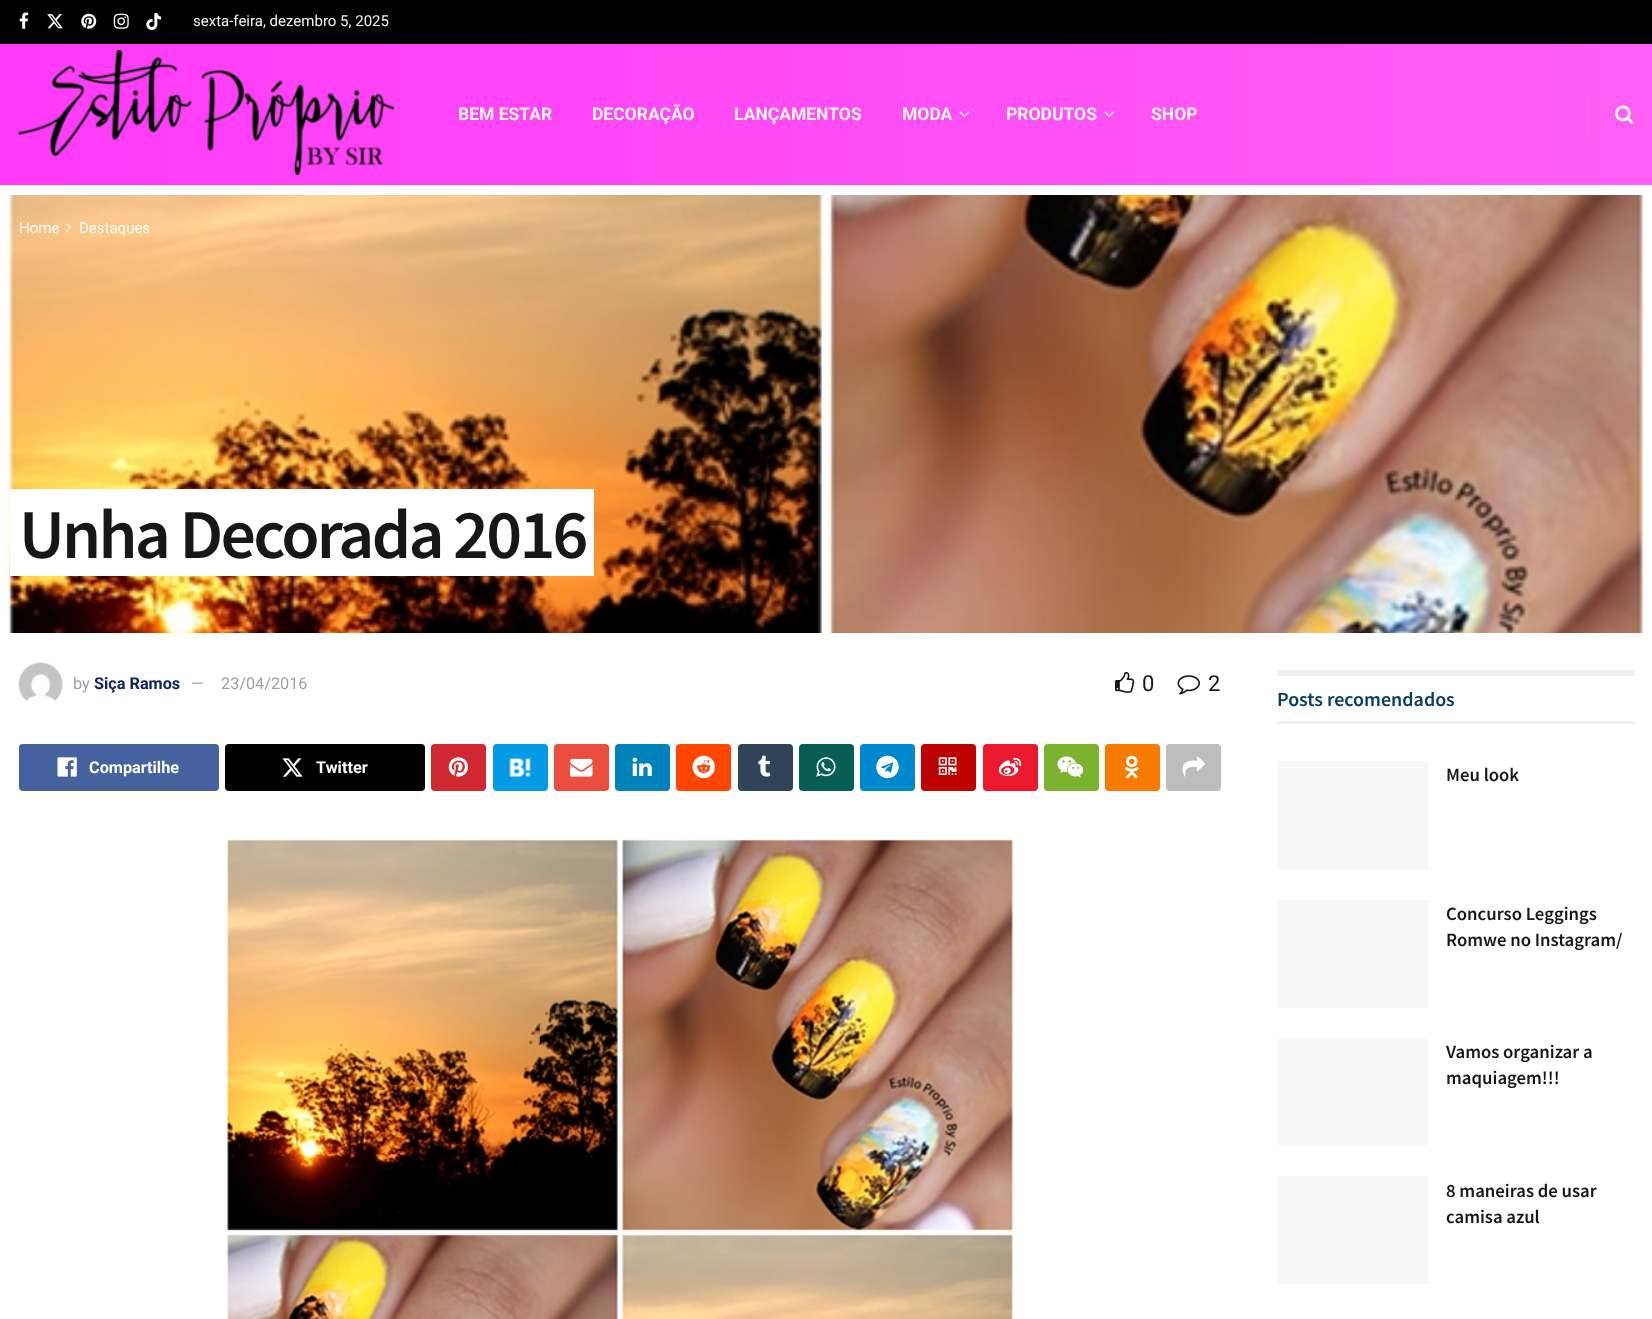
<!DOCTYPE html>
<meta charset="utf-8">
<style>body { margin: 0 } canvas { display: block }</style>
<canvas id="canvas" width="1652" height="1319"></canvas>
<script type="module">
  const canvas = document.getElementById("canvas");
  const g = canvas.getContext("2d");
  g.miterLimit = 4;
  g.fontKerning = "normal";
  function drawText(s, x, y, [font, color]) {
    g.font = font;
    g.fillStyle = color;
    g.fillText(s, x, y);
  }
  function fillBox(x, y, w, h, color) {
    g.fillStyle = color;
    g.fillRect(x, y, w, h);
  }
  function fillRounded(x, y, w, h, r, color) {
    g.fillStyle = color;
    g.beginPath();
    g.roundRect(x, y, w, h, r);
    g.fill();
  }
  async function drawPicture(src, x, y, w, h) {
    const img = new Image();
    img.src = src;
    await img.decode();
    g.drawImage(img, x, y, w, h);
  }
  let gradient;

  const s1 = ["15px Roboto", "#F5F5F5"];
  const s2 = ["bold 17.5px Roboto", "#F5F5F5"];
  const s3 = ["15px Roboto", "#FFFFFF"];
  const s4 = ["600 70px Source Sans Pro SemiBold", "#171717"];
  const s5 = ["16.25px Roboto", "#A0A0A0"];
  const s6 = ["bold 16.25px Roboto", "#0C2461"];
  const s7 = ["22px Roboto", "#171717"];
  const s8 = ["bold 16.25px Roboto", "#FFFFFF"];
  const s9 = ["600 20px Source Sans Pro SemiBold", "#0A3D61"];
  const s10 = ["600 18.75px Source Sans Pro SemiBold", "#171717"];

  fillBox(0, 0, 1652, 1319, "#FFFFFF");
  fillBox(0, 0, 1652, 44, "#000000");
  await drawPicture("pic1.png", 19, 12, 10, 17);
  await drawPicture("pic2.png", 47, 14, 16, 15);
  await drawPicture("pic3.png", 81, 13, 16, 16);
  await drawPicture("pic4.png", 113, 13, 16, 16);
  await drawPicture("pic5.png", 146, 13, 15, 17);
  drawText("sexta-feira, dezembro 5, 2025", 193, 26, s1);
  gradient = g.createLinearGradient(0, 114, 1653, 114);
  gradient.addColorStop(0, "#FF3AF8");
  gradient.addColorStop(1, "#FF5EF4");
  g.fillStyle = gradient;
  g.fillRect(0, 44, 1652, 141);
  await drawPicture("pic6.png", 18, 50, 376, 125);
  drawText("BEM ESTAR", 458, 120, s2);
  drawText("DECORAÇÃO", 592, 120, s2);
  drawText("LANÇAMENTOS", 734, 120, s2);
  drawText("MODA", 902, 120, s2);
  await drawPicture("pic7.png", 959, 111, 11, 6);
  drawText("PRODUTOS", 1006, 120, s2);
  await drawPicture("pic8.png", 1104, 111, 11, 6);
  drawText("SHOP", 1151, 120, s2);
  fillBox(1588, 96, 1, 38, "#FF75F6");
  await drawPicture("pic9.png", 1615, 105, 19, 20);
  await drawPicture("pic10.png", 0, 195, 1652, 438);
  drawText("Home", 19, 233, s3);
  await drawPicture("pic11.png", 66, 223, 6, 9);
  drawText("Destaques", 79, 233, s3);
  fillBox(19, 489, 575, 87, "#FFFFFF");
  g.letterSpacing = "-2.75px";
  drawText("Unha Decorada 2016", 19, 558, s4);
  fillBox(10, 489, 9, 87, "#FFFFFF");
  await drawPicture("pic12.png", 18, 662, 45, 39);
  g.letterSpacing = "0px";
  drawText("by", 73, 689, s5);
  drawText("Siça Ramos", 94, 689, s6);
  drawText("—", 191, 689, s5);
  drawText("23/04/2016", 221, 689, s5);
  await drawPicture("pic13.png", 1115, 672, 20, 21);
  drawText("0", 1142, 691, s7);
  await drawPicture("pic14.png", 1177, 675, 23, 20);
  drawText("2", 1208, 691, s7);
  fillRounded(19, 744, 200, 47, 4, "#45629F");
  await drawPicture("pic15.png", 57, 757, 20, 20);
  drawText("Compartilhe", 89, 773, s8);
  fillRounded(225, 744, 200, 47, 4, "#000000");
  await drawPicture("pic16.png", 282, 758, 21, 19);
  drawText("Twitter", 316, 773, s8);
  fillRounded(431, 744, 55, 47, 4, "#CF2830");
  await drawPicture("pic17.png", 448, 757, 20, 20);
  fillRounded(493, 744, 55, 47, 4, "#039BE5");
  await drawPicture("pic18.png", 509, 758, 22, 20);
  fillRounded(554, 744, 55, 47, 4, "#EB4D3F");
  await drawPicture("pic19.png", 570, 758, 23, 19);
  fillRounded(615, 744, 55, 47, 4, "#0083BB");
  await drawPicture("pic20.png", 632, 757, 20, 19);
  fillRounded(676, 744, 55, 47, 4, "#FF4500");
  await drawPicture("pic21.png", 692, 755, 23, 24);
  fillRounded(738, 744, 55, 47, 4, "#314358");
  await drawPicture("pic22.png", 758, 755, 13, 22);
  fillRounded(799, 744, 55, 47, 4, "#075E54");
  await drawPicture("pic23.png", 816, 757, 20, 20);
  fillRounded(860, 744, 55, 47, 4, "#0088CC");
  await drawPicture("pic24.png", 876, 755, 23, 24);
  fillRounded(921, 744, 55, 47, 4, "#BD0000");
  await drawPicture("pic25.png", 938, 757, 19, 18);
  fillRounded(983, 744, 55, 47, 4, "#EB192D");
  await drawPicture("pic26.png", 998, 757, 24, 20);
  fillRounded(1044, 744, 55, 47, 4, "#7BB32E");
  await drawPicture("pic27.png", 1057, 756, 27, 22);
  fillRounded(1105, 744, 55, 47, 4, "#F87B00");
  await drawPicture("pic28.png", 1125, 755, 14, 24);
  fillRounded(1166, 744, 55, 47, 4, "#BDBDBD");
  await drawPicture("pic29.png", 1182, 756, 23, 21);
  await drawPicture("pic30.png", 226, 839, 788, 480);
  fillBox(1278, 670, 356, 6, "#EEEEEE");
  fillBox(1278, 721, 356, 3, "#EEEEEE");
  drawText("Posts recomendados", 1277, 706, s9);
  fillBox(1278, 761, 150, 108, "#F7F7F7");
  drawText("Meu look", 1446, 781, s10);
  fillBox(1278, 900, 150, 108, "#F7F7F7");
  fillBox(1277, 900, 1, 107, "#FBFBFB");
  drawText("Concurso Leggings", 1446, 920, s10);
  drawText("Romwe no Instagram/", 1446, 946, s10);
  fillBox(1278, 1039, 150, 106, "#F7F7F7");
  fillBox(1277, 1039, 1, 106, "#FBFBFB");
  drawText("Vamos organizar a", 1446, 1058, s10);
  drawText("maquiagem!!!", 1446, 1084, s10);
  fillBox(1278, 1176, 150, 108, "#F7F7F7");
  fillBox(1277, 1177, 1, 106, "#FBFBFB");
  drawText("8 maneiras de usar", 1446, 1197, s10);
  drawText("camisa azul", 1446, 1223, s10);
</script>
